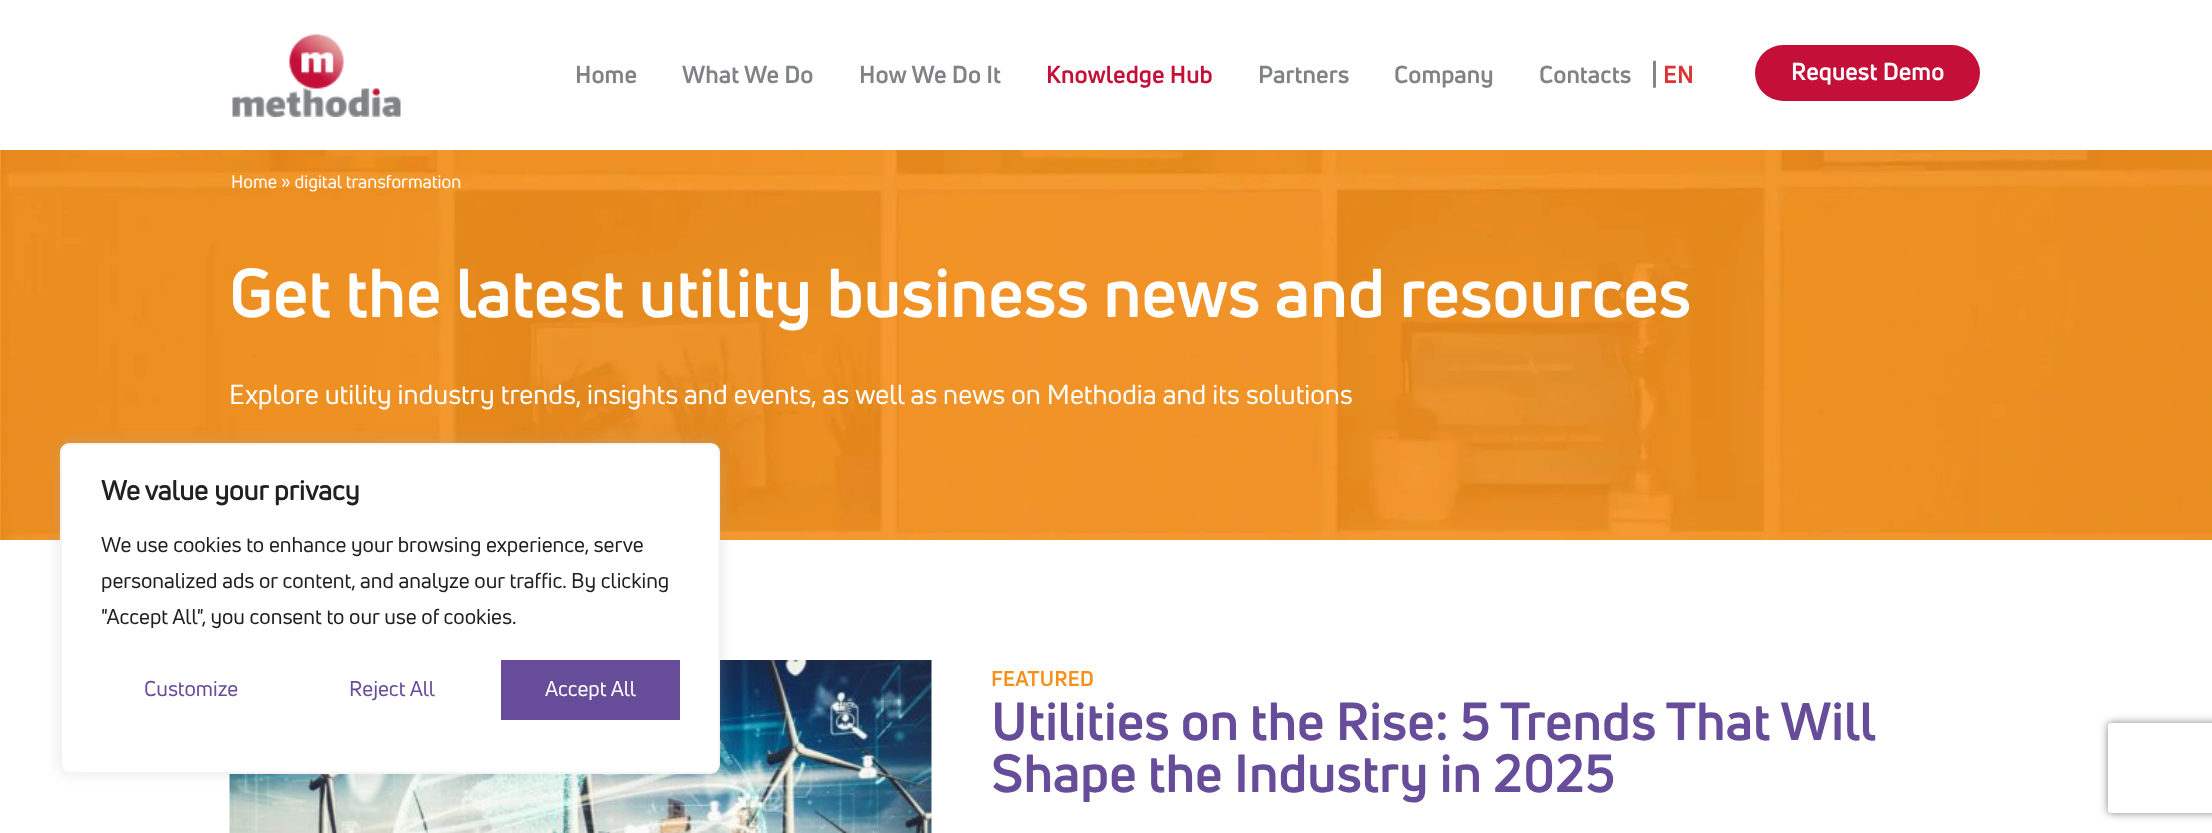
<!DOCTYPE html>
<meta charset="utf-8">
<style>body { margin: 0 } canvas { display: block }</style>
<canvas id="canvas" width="2212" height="833"></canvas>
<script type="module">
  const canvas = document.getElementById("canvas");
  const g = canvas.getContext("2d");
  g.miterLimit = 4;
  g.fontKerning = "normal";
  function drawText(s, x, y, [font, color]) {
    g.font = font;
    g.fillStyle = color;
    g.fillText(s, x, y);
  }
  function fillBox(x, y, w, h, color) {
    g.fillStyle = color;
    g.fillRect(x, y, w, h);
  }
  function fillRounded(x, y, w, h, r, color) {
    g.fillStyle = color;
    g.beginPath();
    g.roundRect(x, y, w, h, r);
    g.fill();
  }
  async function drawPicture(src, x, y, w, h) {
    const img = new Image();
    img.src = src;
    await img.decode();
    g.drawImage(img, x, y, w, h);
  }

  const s1 = ["24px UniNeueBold", "#808285"];
  const s2 = ["24px UniNeueBold", "#C41039"];
  const s3 = ["27px UniNeueBold", "#808285"];
  const s4 = ["24px UniNeueBold", "#DD3333"];
  const s5 = ["24px UniNeueBold", "#FFFFFF"];
  const s6 = ["18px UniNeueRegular", "#FFFFFF"];
  const s7 = ["67.5px UniNeueBold", "#FFFFFF"];
  const s8 = ["27px UniNeueRegular", "#FFFFFF"];
  const s9 = ["21px UniNeueBold", "#F7901B"];
  const s10 = ["52.5px UniNeueBold", "#664C99"];
  const s11 = ["bold 27px UniNeueRegular", "#212121"];
  const s12 = ["21px UniNeueRegular", "#212121"];
  const s13 = ["21px UniNeueRegular", "#664C99"];
  const s14 = ["21px UniNeueRegular", "#FFFFFF"];

  fillBox(0, 0, 2212, 833, "#FFFFFF");
  await drawPicture("pic1.png", 232, 34, 169, 83);
  drawText("Home", 575, 83, s1);
  drawText("What We Do", 682, 83, s1);
  drawText("How We Do It", 859, 83, s1);
  drawText("Knowledge Hub", 1046, 83, s2);
  drawText("Partners", 1258, 83, s1);
  drawText("Company", 1394, 83, s1);
  drawText("Contacts", 1539, 83, s1);
  drawText("|", 1651, 84, s3);
  drawText("EN", 1663, 83, s4);
  fillRounded(1755, 45, 225, 56, 28, "#C41039");
  drawText("Request Demo", 1791, 80, s5);
  await drawPicture("pic2.png", 0, 150, 2212, 390);
  drawText("Home » digital transformation", 231, 188, s6);
  drawText("Get the latest utility business news and resources", 229, 317, s7);
  drawText("Explore utility industry trends, insights and events, as well as news on Methodia and its solutions", 229, 404, s8);
  await drawPicture("pic3.png", 229, 660, 703, 173);
  drawText("FEATURED", 991, 686, s9);
  g.wordSpacing = "-0.25px";
  drawText("Utilities on the Rise: 5 Trends That Will", 991, 740, s10);
  g.wordSpacing = "0px";
  drawText("Shape the Industry in 2025", 991, 792, s10);
  g.fillStyle = "rgba(172, 171, 171, 0.3)";
  g.filter = "blur(7.5px)";
  g.beginPath();
  g.roundRect(60, 441, 660, 332, 9);
  g.fill();
  g.filter = "none";
  g.fillStyle = "#FFFFFF";
  g.beginPath();
  g.roundRect(61, 444, 658, 329, 8);
  g.fill();
  g.strokeStyle = "#F4F4F4";
  g.lineWidth = 2;
  g.stroke();
  drawText("We value your privacy", 101, 500, s11);
  drawText("We use cookies to enhance your browsing experience, serve", 101, 552, s12);
  drawText("personalized ads or content, and analyze our traffic. By clicking", 101, 588, s12);
  drawText("\"Accept All\", you consent to our use of cookies.", 101, 624, s12);
  drawText("Customize", 144, 696, s13);
  drawText("Reject All", 349, 696, s13);
  fillBox(501, 660, 179, 60, "#664C99");
  drawText("Accept All", 545, 696, s14);
  g.save();
  g.beginPath();
  g.moveTo(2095, 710);
  g.lineTo(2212, 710);
  g.lineTo(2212, 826);
  g.lineTo(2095, 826);
  g.closePath();
  g.moveTo(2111, 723);
  g.lineTo(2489, 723);
  g.bezierCurveTo(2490.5, 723, 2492, 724.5, 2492, 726);
  g.lineTo(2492, 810);
  g.bezierCurveTo(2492, 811.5, 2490.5, 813, 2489, 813);
  g.lineTo(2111, 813);
  g.bezierCurveTo(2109.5, 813, 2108, 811.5, 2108, 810);
  g.lineTo(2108, 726);
  g.bezierCurveTo(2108, 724.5, 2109.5, 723, 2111, 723);
  g.closePath();
  g.clip("evenodd");
  g.fillStyle = "#808080";
  g.filter = "blur(4px)";
  g.beginPath();
  g.roundRect(2108, 723, 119, 90, 3);
  g.fill();
  g.filter = "none";
  g.restore();
</script>
